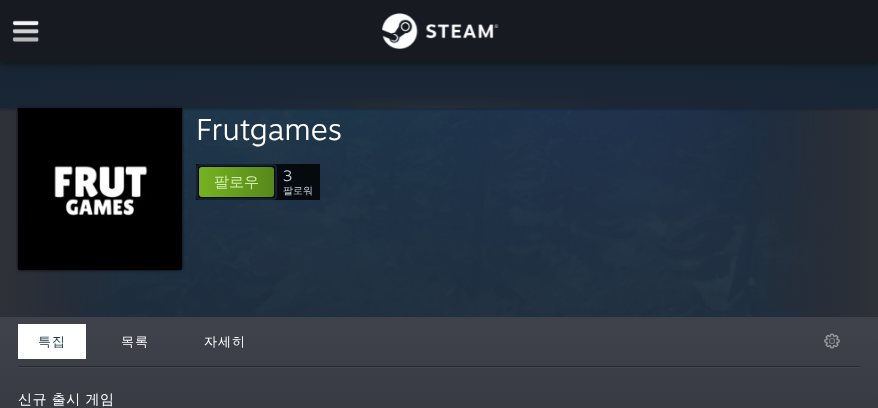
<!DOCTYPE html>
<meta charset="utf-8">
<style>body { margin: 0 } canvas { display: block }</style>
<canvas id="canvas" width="878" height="408"></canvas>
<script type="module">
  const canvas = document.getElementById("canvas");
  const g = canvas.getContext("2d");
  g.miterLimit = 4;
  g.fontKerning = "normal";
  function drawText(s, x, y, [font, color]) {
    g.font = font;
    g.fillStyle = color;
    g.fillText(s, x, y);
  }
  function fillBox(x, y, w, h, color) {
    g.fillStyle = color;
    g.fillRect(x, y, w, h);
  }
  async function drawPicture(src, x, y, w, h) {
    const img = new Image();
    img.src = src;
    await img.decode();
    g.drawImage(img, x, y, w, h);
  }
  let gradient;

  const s1 = ["300 30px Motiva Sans", "#FFFFFF"];
  const s2 = ["500 15px WenQuanYi Zen Hei", "#D2EFA9"];
  const s3 = ["300 15px Motiva Sans", "#C6D4DF"];
  const s4 = ["500 10px WenQuanYi Zen Hei", "#C6D4DF"];
  const s5 = ["500 13px WenQuanYi Zen Hei", "#273D52"];
  const s6 = ["500 13px WenQuanYi Zen Hei", "#FFFFFF"];
  const s7 = ["500 14px WenQuanYi Zen Hei", "#FFFFFF"];

  fillBox(0, 0, 878, 408, "#2E3138");
  await drawPicture("pic3.png", 0, 108, 878, 209);
  g.fillStyle = "#000000";
  g.filter = "blur(1.5px)";
  g.beginPath();
  g.roundRect(18, 106, 164, 164, 2);
  g.fill();
  g.filter = "none";
  await drawPicture("pic4.png", 18, 106, 164, 164);
  g.save();
  g.beginPath();
  g.rect(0, 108, 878, 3);
  g.clip();
  g.fillStyle = "rgba(0, 0, 0, 0.2)";
  g.filter = "blur(1px)";
  g.beginPath();
  g.rect(0, 64, 878, 46);
  g.fill();
  g.filter = "none";
  g.restore();
  gradient = g.createRadialGradient(439, 1566, 0, 439, 1566, 957);
  gradient.addColorStop(0, "rgba(24, 37, 53, 0.2)");
  gradient.addColorStop(0.05, "rgba(24, 37, 53, 0.52)");
  gradient.addColorStop(0.2, "rgba(24, 37, 53, 0.85)");
  gradient.addColorStop(0.6, "#182535");
  gradient.addColorStop(1, "#192330");
  g.fillStyle = gradient;
  g.beginPath();
  g.rect(0, 62, 878, 46);
  g.save();
  g.clip();
  g.scale(1, 66 / 957);
  g.fillRect(0, 0, 878, 5916);
  g.restore();
  g.fillStyle = "rgba(0, 0, 0, 0.75)";
  g.filter = "blur(3.5px)";
  g.beginPath();
  g.rect(0, 0, 878, 62);
  g.fill();
  g.filter = "none";
  fillBox(0, 0, 878, 62, "#171A21");
  await drawPicture("pic1.png", 12, 20, 27, 22);
  await drawPicture("pic2.png", 382, 13, 117, 36);
  drawText("Frutgames", 196, 140, s1);
  fillBox(196, 164, 124, 36, "rgba(0, 0, 0, 0.8)");
  g.beginPath();
  g.roundRect(197, 165, 79, 34, 3);
  g.strokeStyle = "#172030";
  g.lineWidth = 2;
  g.stroke();
  gradient = g.createLinearGradient(199, 182, 274, 182);
  gradient.addColorStop(0.05, "#75B022");
  gradient.addColorStop(0.95, "#588A1B");
  g.fillStyle = gradient;
  g.beginPath();
  g.roundRect(199, 167, 75, 30, 3);
  g.fill();
  drawText("팔로우", 214, 187, s2);
  drawText("3", 283, 181, s3);
  drawText("팔로워", 283, 194, s4);
  gradient = g.createLinearGradient(439, 317, 439, 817);
  gradient.addColorStop(0.02, "#3F424A");
  gradient.addColorStop(0.4, "rgba(63, 66, 74, 0)");
  g.fillStyle = gradient;
  g.fillRect(0, 317, 878, 91);
  fillBox(18, 367, 842, 1, "#46484F");
  fillBox(18, 366, 842, 1, "#272B31");
  fillBox(18, 324, 68, 35, "#FFFFFF");
  g.letterSpacing = "1px";
  drawText("특집", 38, 346, s5);
  drawText("목록", 121, 346, s6);
  drawText("자세히", 204, 346, s6);
  await drawPicture("pic5.png", 824, 333, 16, 16);
  g.letterSpacing = "0.5px";
  drawText("신규 출시 게임", 18, 404, s7);
</script>
